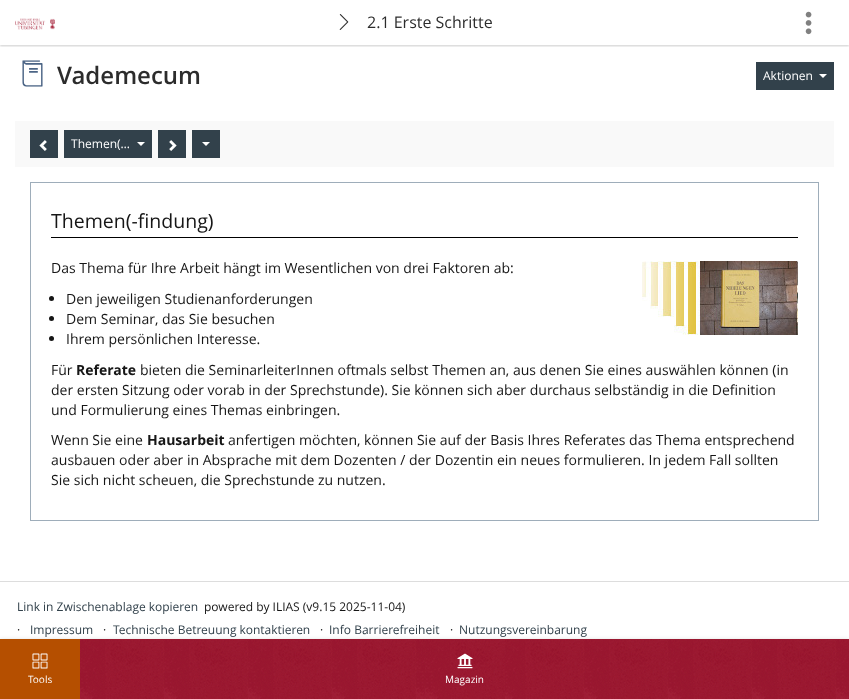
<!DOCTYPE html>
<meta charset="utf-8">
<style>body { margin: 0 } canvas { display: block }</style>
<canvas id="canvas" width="849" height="699"></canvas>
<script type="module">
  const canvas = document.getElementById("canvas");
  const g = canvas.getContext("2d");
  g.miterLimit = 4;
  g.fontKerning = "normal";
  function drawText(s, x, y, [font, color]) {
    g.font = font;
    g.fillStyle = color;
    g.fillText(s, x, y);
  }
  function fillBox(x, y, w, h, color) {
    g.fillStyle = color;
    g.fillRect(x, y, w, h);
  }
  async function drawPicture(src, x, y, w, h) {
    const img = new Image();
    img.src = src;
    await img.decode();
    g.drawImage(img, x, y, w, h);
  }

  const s1 = ["16px Open Sans", "#2C2C2C"];
  const s2 = ["600 24px Open Sans", "#2C2C2C"];
  const s3 = ["12px Open Sans", "#FFFFFF"];
  const s4 = ["19.5px Open Sans", "#161616"];
  const s5 = ["14px Open Sans", "#161616"];
  const s6 = ["bold 14px Open Sans", "#161616"];
  const s7 = ["12px Open Sans", "#32414B"];
  const s8 = ["12px Open Sans", "#161616"];
  const s9 = ["10px Open Sans", "#FFFFFF"];

  fillBox(0, 0, 849, 699, "#FFFFFF");
  g.save();
  g.beginPath();
  g.rect(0, 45, 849, 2);
  g.clip();
  g.fillStyle = "rgba(0, 0, 0, 0.1)";
  g.filter = "blur(1px)";
  g.beginPath();
  g.rect(0, 1, 849, 45);
  g.fill();
  g.filter = "none";
  g.filter = "blur(1px)";
  g.beginPath();
  g.rect(0, 1, 849, 45);
  g.fill();
  g.filter = "none";
  g.restore();
  await drawPicture("pic1.png", 15, 18, 40, 12);
  await drawPicture("pic2.png", 339, 14, 10, 16);
  drawText("2.1 Erste Schritte", 367, 28, s1);
  await drawPicture("pic3.png", 805, 11, 7, 24);
  await drawPicture("pic4.png", 22, 60, 21, 27);
  drawText("Vademecum", 57, 84, s2);
  fillBox(756, 62, 78, 28, "#32414B");
  drawText("Aktionen", 763, 80, s3);
  g.beginPath();
  g.moveTo(819, 74);
  g.lineTo(827, 74);
  g.lineTo(823, 78);
  g.closePath();
  g.fill();
  fillBox(15, 121, 819, 46, "#F9F9F9");
  fillBox(30, 130, 28, 28, "#32414B");
  await drawPicture("pic5.png", 39, 140, 8, 11);
  fillBox(64, 130, 88, 28, "#32414B");
  drawText("Themen(…", 71, 148, s3);
  g.beginPath();
  g.moveTo(137, 142);
  g.lineTo(145, 142);
  g.lineTo(141, 146);
  g.closePath();
  g.fill();
  fillBox(158, 130, 28, 28, "#32414B");
  await drawPicture("pic6.png", 169, 140, 8, 11);
  fillBox(192, 130, 28, 28, "#32414B");
  g.fillStyle = "#FFFFFF";
  g.beginPath();
  g.moveTo(202, 142);
  g.lineTo(210, 142);
  g.lineTo(206, 146);
  g.closePath();
  g.fill();
  g.strokeStyle = "#9EADBA";
  g.strokeRect(30.5, 182.5, 788, 338);
  fillBox(51, 237, 747, 1, "#000000");
  drawText("Themen(-findung)", 51, 228, s4);
  drawText("Das Thema für Ihre Arbeit hängt im Wesentlichen von drei Faktoren ab:", 51, 273, s5);
  g.beginPath();
  g.arc(51.5, 298.5, 2.5, 0, Math.PI * 2);
  g.fill();
  drawText("Den jeweiligen Studienanforderungen", 66, 304, s5);
  g.beginPath();
  g.arc(51.5, 318.5, 2.5, 0, Math.PI * 2);
  g.fill();
  drawText("Dem Seminar, das Sie besuchen", 66, 324, s5);
  g.beginPath();
  g.arc(51.5, 338.5, 2.5, 0, Math.PI * 2);
  g.fill();
  drawText("Ihrem persönlichen Interesse.", 66, 344, s5);
  await drawPicture("pic7.png", 642, 261, 156, 74);
  drawText("Für", 51, 375, s5);
  drawText("Referate", 76, 375, s6);
  drawText("bieten die SeminarleiterInnen oftmals selbst Themen an, aus denen Sie eines auswählen können (in", 140, 375, s5);
  drawText("der ersten Sitzung oder vorab in der Sprechstunde). Sie können sich aber durchaus selbständig in die Definition", 51, 395, s5);
  drawText("und Formulierung eines Themas einbringen.", 51, 415, s5);
  drawText("Wenn Sie eine", 51, 445, s5);
  drawText("Hausarbeit", 147, 445, s6);
  drawText("anfertigen möchten, können Sie auf der Basis Ihres Referates das Thema entsprechend", 228, 445, s5);
  drawText("ausbauen oder aber in Absprache mit dem Dozenten / der Dozentin ein neues formulieren. In jedem Fall sollten", 51, 465, s5);
  drawText("Sie sich nicht scheuen, die Sprechstunde zu nutzen.", 51, 485, s5);
  fillBox(0, 581, 849, 1, "#DDDDDD");
  drawText("Link in Zwischenablage kopieren", 17, 611, s7);
  drawText("powered by ILIAS (v9.15 2025-11-04)", 204, 611, s8);
  drawText("·", 17, 634, s8);
  drawText("Impressum", 30, 634, s7);
  drawText("·", 103, 634, s8);
  drawText("Technische Betreuung kontaktieren", 113, 634, s7);
  drawText("·", 320, 634, s8);
  drawText("Info Barrierefreiheit", 329, 634, s7);
  drawText("·", 450, 634, s8);
  drawText("Nutzungsvereinbarung", 459, 634, s7);
  g.fillStyle = "rgba(0, 0, 0, 0.1)";
  g.filter = "blur(2px)";
  g.beginPath();
  g.rect(0, 639, 849, 60);
  g.fill();
  g.filter = "none";
  await drawPicture("pic8.png", 80, 639, 769, 1);
  fillBox(0, 639, 80, 60, "#B54F00");
  await drawPicture("pic9.png", 32, 653, 16, 16);
  drawText("Tools", 28, 683, s9);
  await drawPicture("pic10.png", 80, 640, 769, 59);
  await drawPicture("pic11.png", 425, 640, 80, 59);
  await drawPicture("pic12.png", 457, 653, 16, 16);
  drawText("Magazin", 445, 683, s9);
</script>
